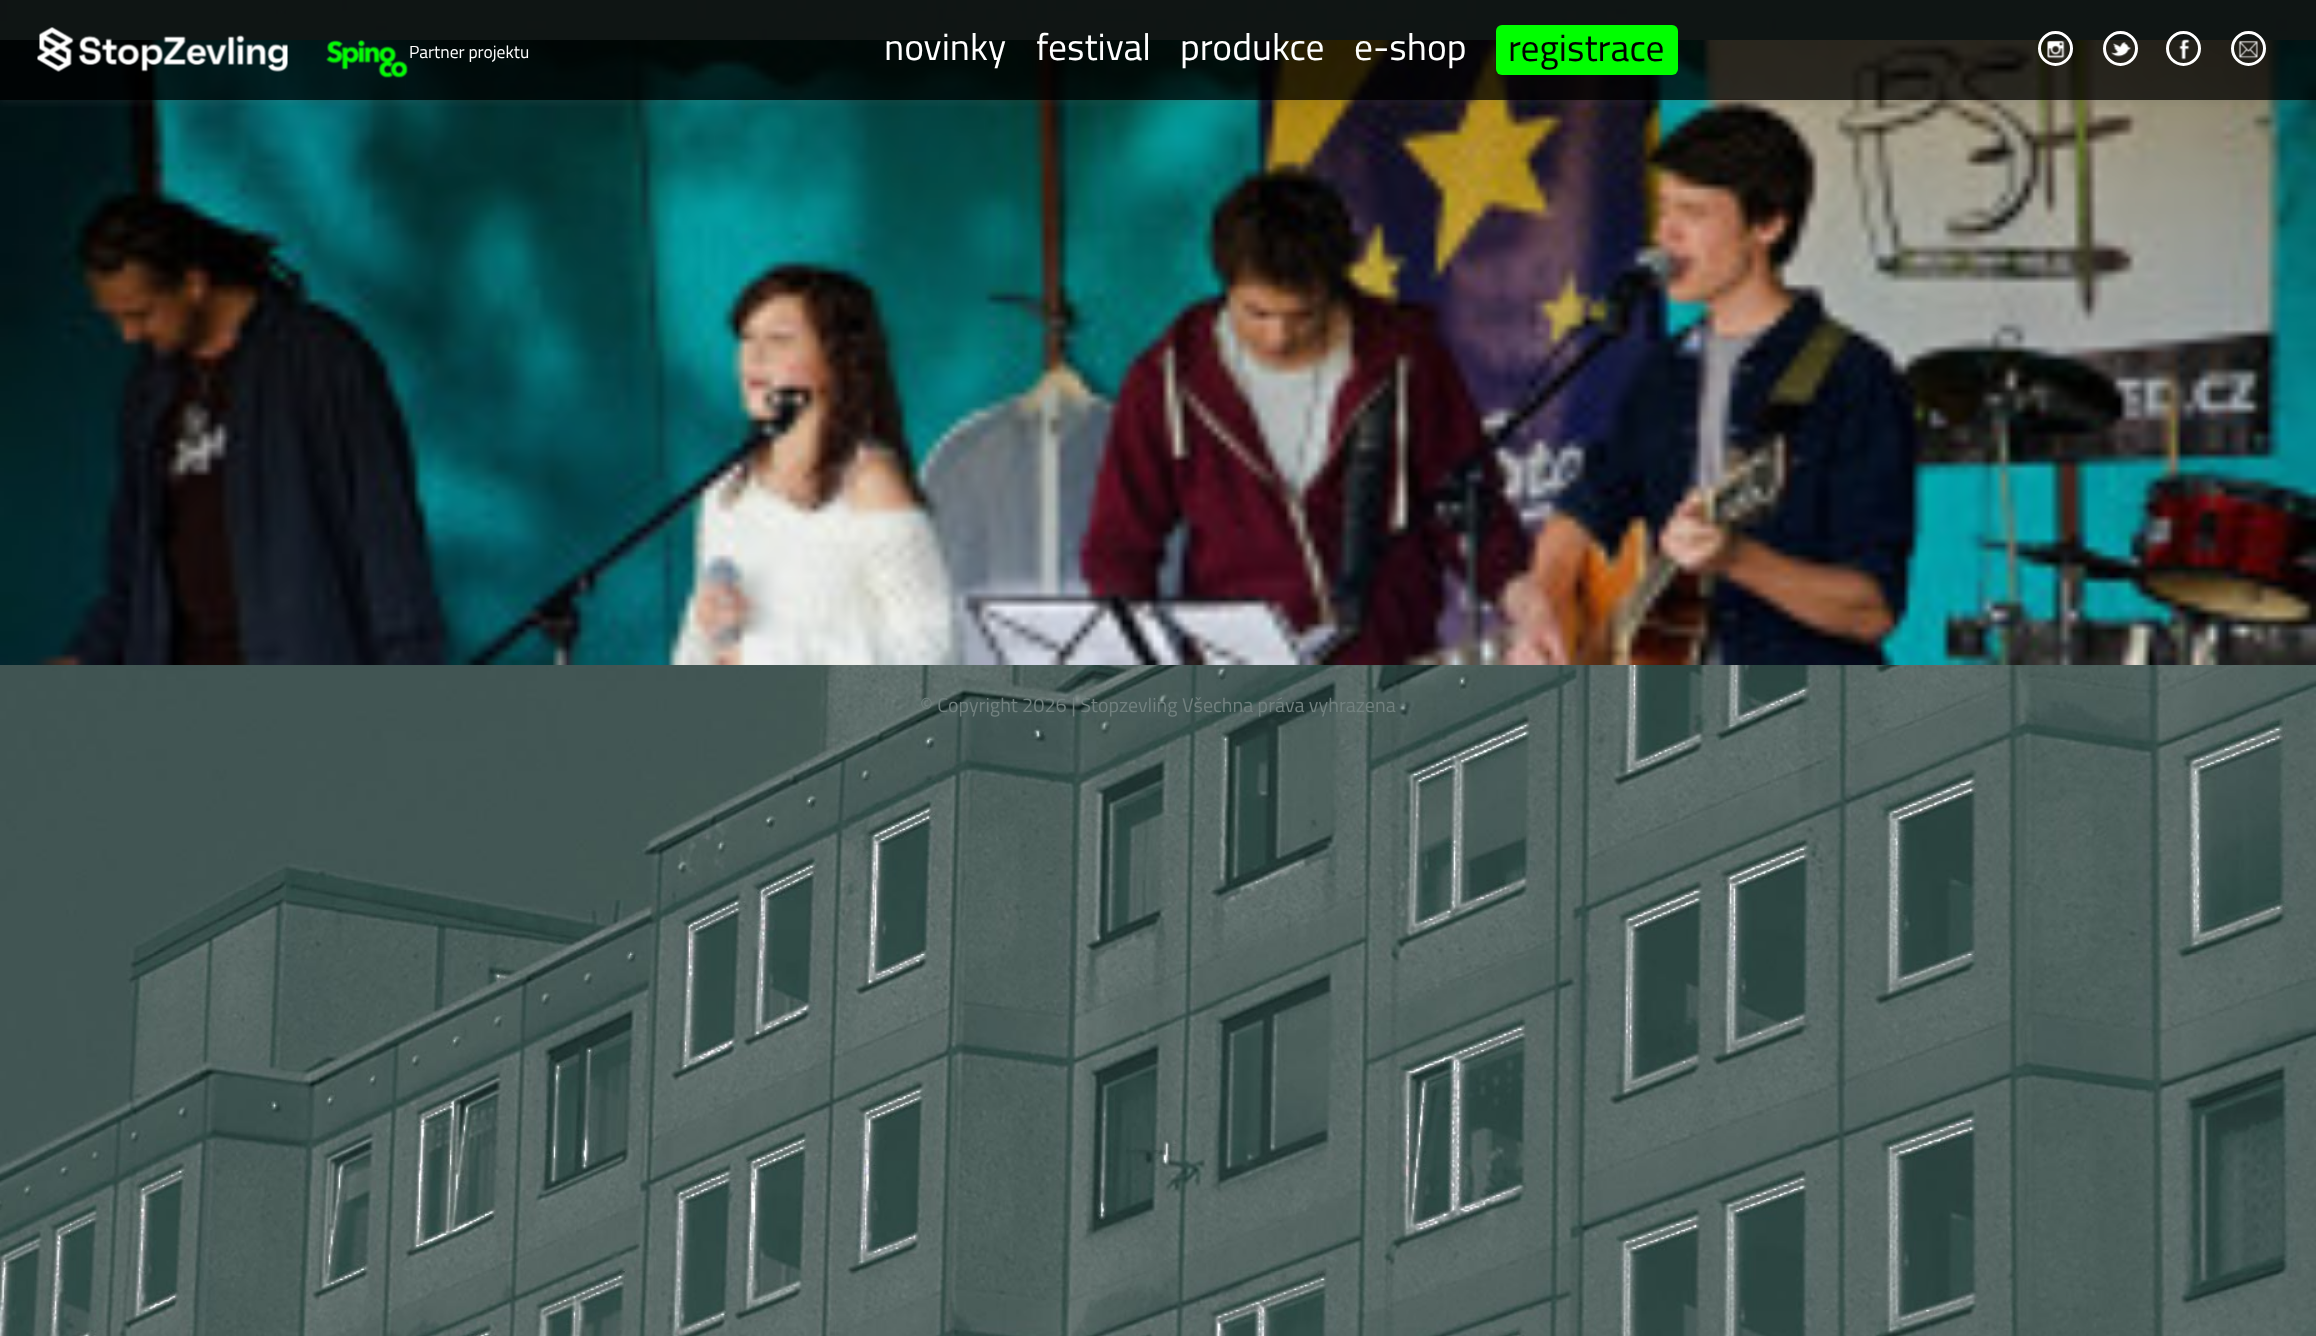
<!DOCTYPE html>
<meta charset="utf-8">
<style>body { margin: 0 } canvas { display: block }</style>
<canvas id="canvas" width="2316" height="1336"></canvas>
<script type="module">
  const canvas = document.getElementById("canvas");
  const g = canvas.getContext("2d");
  g.miterLimit = 4;
  g.fontKerning = "normal";
  function drawText(s, x, y, [font, color]) {
    g.font = font;
    g.fillStyle = color;
    g.fillText(s, x, y);
  }
  function fillBox(x, y, w, h, color) {
    g.fillStyle = color;
    g.fillRect(x, y, w, h);
  }
  function fillRounded(x, y, w, h, r, color) {
    g.fillStyle = color;
    g.beginPath();
    g.roundRect(x, y, w, h, r);
    g.fill();
  }
  async function drawPicture(src, x, y, w, h) {
    const img = new Image();
    img.src = src;
    await img.decode();
    g.drawImage(img, x, y, w, h);
  }

  const s1 = ["17.5px Titillium Web", "#FFFFFF"];
  const s2 = ["37.5px Titillium Web", "#FFFFFF"];
  const s3 = ["37.5px Titillium Web", "#000000"];
  const s4 = ["20px Titillium Web", "#72817F"];

  fillBox(0, 0, 2316, 1336, "#FFFFFF");
  await drawPicture("pic1.png", 0, 0, 2316, 1336);
  await drawPicture("pic8.png", 0, 40, 2316, 625);
  g.save();
  g.beginPath();
  g.rect(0, 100, 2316, 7);
  g.clip();
  g.fillStyle = "rgba(106, 106, 106, 0.15)";
  g.filter = "blur(4px)";
  g.beginPath();
  g.rect(0, 3, 2316, 100);
  g.fill();
  g.filter = "none";
  g.restore();
  fillBox(0, 0, 2316, 100, "rgba(0, 0, 0, 0.75)");
  await drawPicture("pic2.png", 37, 27, 251, 45);
  await drawPicture("pic3.png", 326, 40, 82, 38);
  drawText("Partner projektu", 409, 58, s1);
  drawText("novinky", 884, 60, s2);
  drawText("festival", 1036, 60, s2);
  drawText("produkce", 1180, 60, s2);
  drawText("e-shop", 1354, 60, s2);
  fillRounded(1496, 25, 182, 50, 6, "#00FF00");
  drawText("registrace", 1508, 61, s3);
  await drawPicture("pic4.png", 2047, 41, 18, 18);
  g.beginPath();
  g.arc(2055.5, 48.5, 16, 0, Math.PI * 2);
  g.strokeStyle = "#FFFFFF";
  g.lineWidth = 3;
  g.stroke();
  await drawPicture("pic5.png", 2111, 42, 20, 15);
  g.beginPath();
  g.arc(2120.5, 48.5, 16, 0, Math.PI * 2);
  g.stroke();
  await drawPicture("pic6.png", 2179, 39, 11, 21);
  g.beginPath();
  g.arc(2183.5, 48.5, 16, 0, Math.PI * 2);
  g.stroke();
  await drawPicture("pic7.png", 2238, 41, 20, 18);
  g.beginPath();
  g.arc(2248.5, 48.5, 16, 0, Math.PI * 2);
  g.stroke();
  drawText("© Copyright", 920, 712, s4);
  drawText("2026 | Stopzevling Všechna práva vyhrazena", 1022, 712, s4);
</script>
